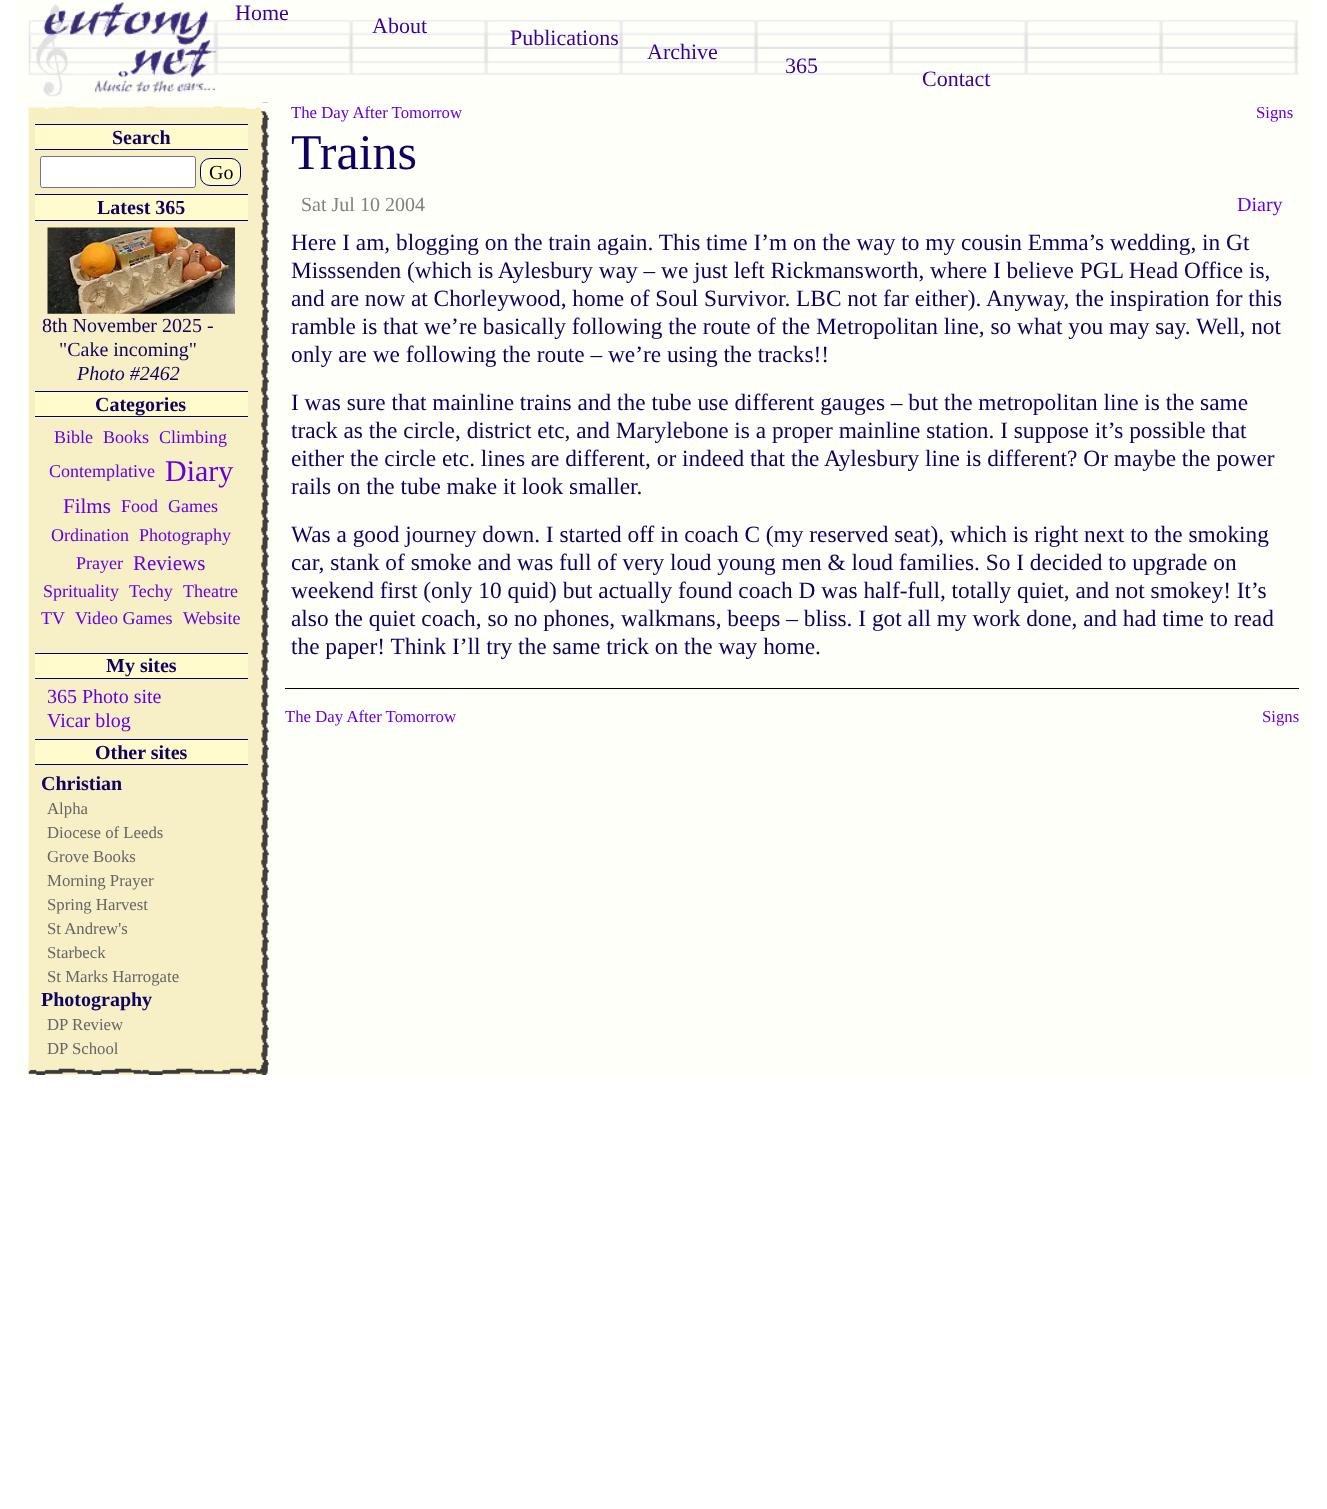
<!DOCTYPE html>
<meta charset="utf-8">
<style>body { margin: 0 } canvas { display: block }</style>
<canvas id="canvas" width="1327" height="1509"></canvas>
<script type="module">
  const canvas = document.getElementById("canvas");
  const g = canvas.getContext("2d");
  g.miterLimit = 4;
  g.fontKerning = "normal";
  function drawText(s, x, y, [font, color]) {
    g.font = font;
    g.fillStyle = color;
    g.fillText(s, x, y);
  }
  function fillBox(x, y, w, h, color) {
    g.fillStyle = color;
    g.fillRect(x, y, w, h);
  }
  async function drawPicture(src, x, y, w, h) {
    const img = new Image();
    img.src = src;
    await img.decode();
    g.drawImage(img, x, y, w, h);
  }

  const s1 = ["22px Liberation Serif", "#380096"];
  const s2 = ["bold 20px Liberation Serif", "#100060"];
  const s3 = ["20px Liberation Serif", "#000000"];
  const s4 = ["20px Liberation Serif", "#100060"];
  const s5 = ["italic 20px Liberation Serif", "#100060"];
  const s6 = ["18px Liberation Serif", "#6600DD"];
  const s7 = ["30px Liberation Serif", "#6600DD"];
  const s8 = ["21px Liberation Serif", "#6600DD"];
  const s9 = ["20px Liberation Serif", "#6600DD"];
  const s10 = ["16.75px Liberation Serif", "#666666"];
  const s11 = ["16.75px Liberation Serif", "#6600DD"];
  const s12 = ["50px Liberation Serif", "#100060"];
  const s13 = ["20px Liberation Serif", "#808080"];
  const s14 = ["23.35px Liberation Serif", "#100060"];

  fillBox(0, 0, 1327, 1509, "#FFFFFF");
  fillBox(14, 0, 1300, 1075, "#FFFFF9");
  await drawPicture("pic1.png", 28, 2, 189, 95);
  await drawPicture("pic2.png", 216, 20, 1083, 55);
  drawText("Home", 235, 20, s1);
  drawText("About", 372, 33, s1);
  drawText("Publications", 510, 45, s1);
  drawText("Archive", 647, 59, s1);
  drawText("365", 785, 73, s1);
  drawText("Contact", 922, 86, s1);
  await drawPicture("pic3.png", 28, 102, 241, 973);
  await drawPicture("pic4.png", 28, 102, 241, 16);
  fillBox(35, 125, 213, 24, "#FFFBCD");
  fillBox(35, 124, 213, 1, "#000066");
  fillBox(35, 149, 213, 1, "#000066");
  drawText("Search", 112, 144, s2);
  g.fillStyle = "#FFFFFF";
  g.beginPath();
  g.roundRect(40.5, 156.5, 155, 31, 2);
  g.fill();
  g.strokeStyle = "#767676";
  g.stroke();
  g.fillStyle = "#FFFBCD";
  g.beginPath();
  g.roundRect(200.5, 158.5, 40, 27, 9.5);
  g.fill();
  g.strokeStyle = "#000066";
  g.stroke();
  drawText("Go", 209, 179, s3);
  fillBox(35, 195, 213, 25, "#FFFBCD");
  fillBox(35, 194, 213, 1, "#000066");
  fillBox(35, 220, 213, 1, "#000066");
  drawText("Latest 365", 97, 214, s2);
  await drawPicture("pic5.png", 47, 227, 188, 87);
  drawText("8th November 2025 -", 42, 332, s4);
  drawText("\"Cake incoming\"", 59, 356, s4);
  drawText("Photo #2462", 77, 380, s5);
  fillBox(35, 392, 213, 26, "#FFFBCD");
  fillBox(35, 391, 213, 1, "#000066");
  fillBox(35, 416, 213, 1, "#000066");
  drawText("Categories", 95, 411, s2);
  drawText("Bible", 54, 443, s6);
  drawText("Books", 103, 443, s6);
  drawText("Climbing", 159, 443, s6);
  drawText("Contemplative", 49, 477, s6);
  drawText("Diary", 165, 481, s7);
  drawText("Films", 63, 513, s8);
  drawText("Food", 121, 512, s6);
  drawText("Games", 168, 512, s6);
  drawText("Ordination", 51, 541, s6);
  drawText("Photography", 139, 541, s6);
  drawText("Prayer", 76, 569, s6);
  drawText("Reviews", 133, 570, s8);
  drawText("Sprituality", 43, 597, s6);
  drawText("Techy", 129, 597, s6);
  drawText("Theatre", 183, 597, s6);
  drawText("TV", 41, 624, s6);
  drawText("Video Games", 75, 624, s6);
  drawText("Website", 183, 624, s6);
  fillBox(35, 654, 213, 24, "#FFFBCD");
  fillBox(35, 653, 213, 1, "#000066");
  fillBox(35, 678, 213, 1, "#000066");
  drawText("My sites", 106, 672, s2);
  drawText("365 Photo site", 47, 703, s9);
  drawText("Vicar blog", 47, 727, s9);
  fillBox(35, 740, 213, 24, "#FFFBCD");
  fillBox(35, 739, 213, 1, "#000066");
  fillBox(35, 764, 213, 1, "#000066");
  drawText("Other sites", 95, 759, s2);
  drawText("Christian", 41, 790, s2);
  drawText("Alpha", 47, 814, s10);
  drawText("Diocese of Leeds", 47, 838, s10);
  drawText("Grove Books", 47, 862, s10);
  drawText("Morning Prayer", 47, 886, s10);
  drawText("Spring Harvest", 47, 910, s10);
  drawText("St Andrew's", 47, 934, s10);
  drawText("Starbeck", 47, 958, s10);
  drawText("St Marks Harrogate", 47, 982, s10);
  drawText("Photography", 41, 1006, s2);
  drawText("DP Review", 47, 1030, s10);
  drawText("DP School", 47, 1054, s10);
  await drawPicture("pic6.png", 28, 1060, 240, 15);
  drawText("The Day After Tomorrow", 291, 118, s11);
  drawText("Signs", 1256, 118, s11);
  drawText("Trains", 291, 169, s12);
  drawText("Sat Jul 10 2004", 301, 211, s13);
  drawText("Diary", 1237, 211, s9);
  fillBox(285, 688, 1014, 1, "#000000");
  drawText("Here I am, blogging on the train again. This time I’m on the way to my cousin Emma’s wedding, in Gt", 291, 250, s14);
  drawText("Misssenden (which is Aylesbury way – we just left Rickmansworth, where I believe PGL Head Office is,", 291, 278, s14);
  drawText("and are now at Chorleywood, home of Soul Survivor. LBC not far either). Anyway, the inspiration for this", 291, 306, s14);
  drawText("ramble is that we’re basically following the route of the Metropolitan line, so what you may say. Well, not", 291, 334, s14);
  drawText("only are we following the route – we’re using the tracks!!", 291, 362, s14);
  drawText("I was sure that mainline trains and the tube use different gauges – but the metropolitan line is the same", 291, 410, s14);
  drawText("track as the circle, district etc, and Marylebone is a proper mainline station. I suppose it’s possible that", 291, 438, s14);
  drawText("either the circle etc. lines are different, or indeed that the Aylesbury line is different? Or maybe the power", 291, 466, s14);
  drawText("rails on the tube make it look smaller.", 291, 494, s14);
  drawText("Was a good journey down. I started off in coach C (my reserved seat), which is right next to the smoking", 291, 542, s14);
  drawText("car, stank of smoke and was full of very loud young men & loud families. So I decided to upgrade on", 291, 570, s14);
  drawText("weekend first (only 10 quid) but actually found coach D was half-full, totally quiet, and not smokey! It’s", 291, 598, s14);
  drawText("also the quiet coach, so no phones, walkmans, beeps – bliss. I got all my work done, and had time to read", 291, 626, s14);
  drawText("the paper! Think I’ll try the same trick on the way home.", 291, 654, s14);
  drawText("The Day After Tomorrow", 285, 722, s11);
  drawText("Signs", 1262, 722, s11);
</script>
